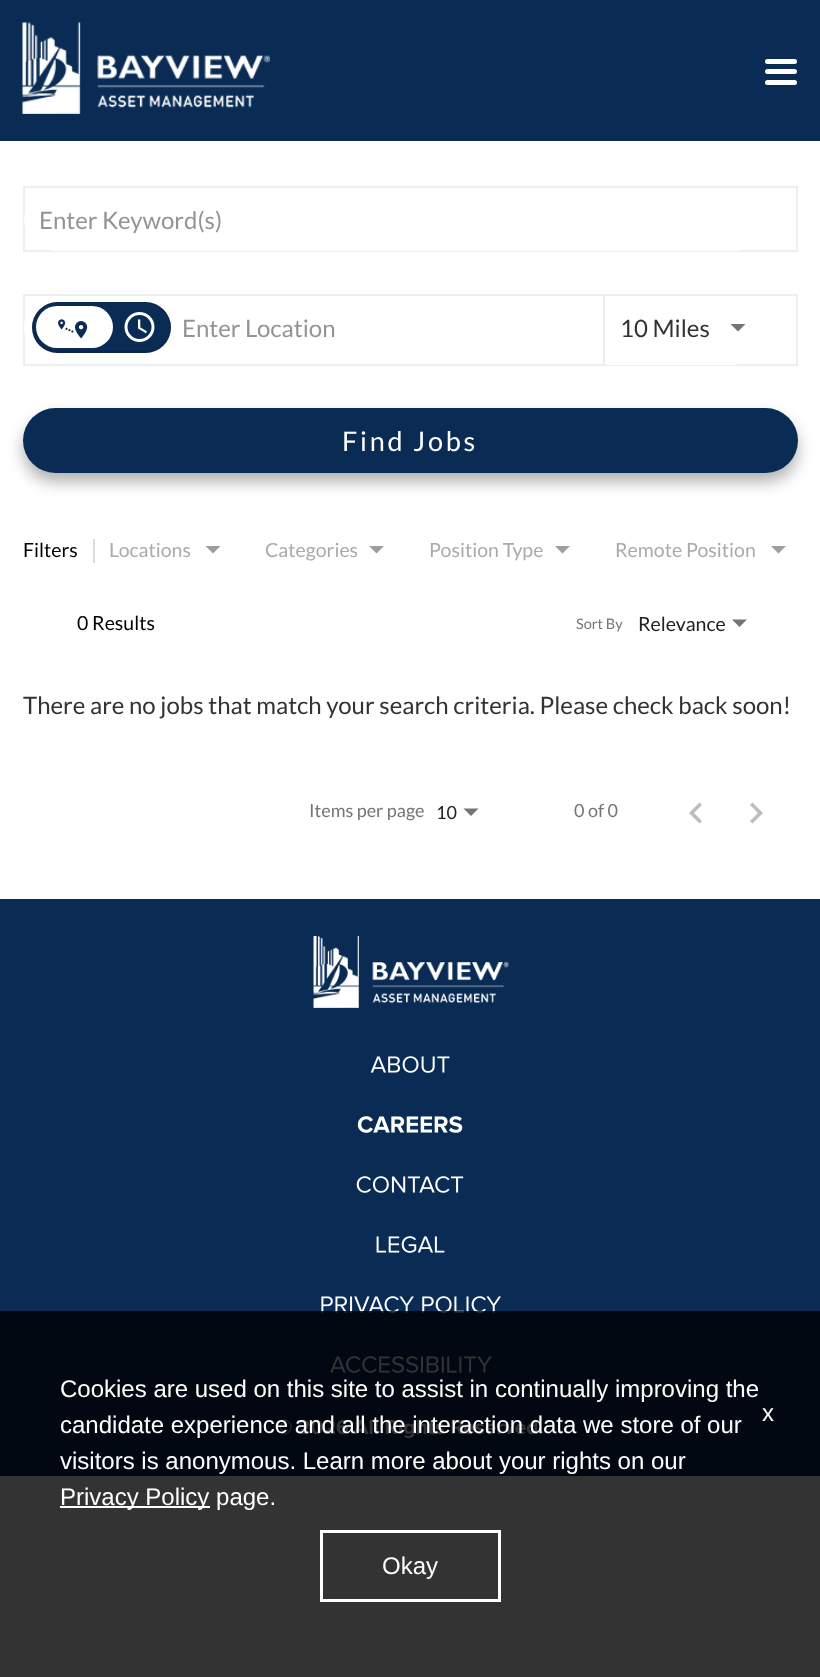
<!DOCTYPE html>
<meta charset="utf-8">
<style>body { margin: 0 } canvas { display: block }</style>
<canvas id="canvas" width="820" height="1677"></canvas>
<script type="module">
  const canvas = document.getElementById("canvas");
  const g = canvas.getContext("2d");
  g.miterLimit = 4;
  g.fontKerning = "normal";
  function drawText(s, x, y, [font, color]) {
    g.font = font;
    g.fillStyle = color;
    g.fillText(s, x, y);
  }
  function fillBox(x, y, w, h, color) {
    g.fillStyle = color;
    g.fillRect(x, y, w, h);
  }
  function fillRounded(x, y, w, h, r, color) {
    g.fillStyle = color;
    g.beginPath();
    g.roundRect(x, y, w, h, r);
    g.fill();
  }
  async function drawPicture(src, x, y, w, h) {
    const img = new Image();
    img.src = src;
    await img.decode();
    g.drawImage(img, x, y, w, h);
  }

  const s1 = ["24px Lato", "#949494"];
  const s2 = ["24px Lato", "#333333"];
  const s3 = ["27px Lato", "#FFFFFF"];
  const s4 = ["19.5px Lato", "#000000"];
  const s5 = ["19.5px Lato", "#AAAAAA"];
  const s6 = ["14.5px Lato", "#757575"];
  const s7 = ["19.5px Lato", "#212121"];
  const s8 = ["18px Lato", "#757575"];
  const s9 = ["18px Lato", "#212121"];
  const s10 = ["24px Liberation Sans", "#FFFFFF"];

  fillBox(0, 0, 820, 1677, "#FFFFFF");
  fillBox(0, 0, 820, 141, "#0A2C54");
  await drawPicture("pic1.png", 22, 22, 248, 92);
  fillRounded(765, 69, 32, 5, 2.5, "#FFFFFF");
  fillRounded(765, 59, 32, 5, 2.5, "#FFFFFF");
  fillRounded(765, 80, 32, 5, 2.5, "#FFFFFF");
  g.strokeStyle = "#EEEEEE";
  g.lineWidth = 2;
  g.strokeRect(24, 187, 773, 64);
  fillRounded(24, 188, 743, 63, 31.5, "#FFFFFF");
  drawText("Enter Keyword(s)", 39, 229, s1);
  g.strokeRect(24, 295, 773, 70);
  fillRounded(24, 296, 567, 63, 31.5, "#FFFFFF");
  fillRounded(24, 296, 155, 63, 31.5, "#FFFFFF");
  fillRounded(32, 302, 139, 51, 25.5, "#0A2C54");
  g.beginPath();
  g.roundRect(33, 303, 137, 49, 24.5);
  g.strokeStyle = "rgba(0, 0, 0, 0.12)";
  g.stroke();
  g.beginPath();
  g.roundRect(33, 303, 83, 48, [24, 0, 0, 24]);
  g.fill();
  fillRounded(36, 306, 77, 42, 21, "#FFFFFF");
  await drawPicture("pic2.png", 58, 319, 30, 20);
  g.fillStyle = "#0A2C54";
  g.beginPath();
  g.roundRect(116, 303, 54, 48, [0, 24, 24, 0]);
  g.fill();
  await drawPicture("pic3.png", 124, 312, 31, 30);
  drawText("Enter Location", 182, 337, s1);
  g.fillStyle = "#FFFFFF";
  g.beginPath();
  g.roundRect(603, 296, 164, 69, [0, 34.5, 34.5, 0]);
  g.fill();
  fillBox(603, 296, 2, 69, "#EEEEEE");
  drawText("10 Miles", 620, 337, s2);
  g.fillStyle = "#757575";
  g.beginPath();
  g.moveTo(730.5, 324);
  g.lineTo(745.5, 324);
  g.lineTo(738, 331.5);
  g.closePath();
  g.fill();
  g.fillStyle = "rgba(0, 0, 0, 0.3)";
  g.filter = "blur(7.5px)";
  g.beginPath();
  g.roundRect(23, 417, 775, 65, 32.5);
  g.fill();
  g.filter = "none";
  fillRounded(23, 408, 775, 65, 32.5, "#0A2C54");
  g.letterSpacing = "2.75px";
  drawText("Find Jobs", 342, 451, s3);
  fillBox(93, 539, 2, 24, "#DDDDDD");
  g.letterSpacing = "0px";
  drawText("Filters", 23, 557, s4);
  drawText("Locations", 109, 557, s5);
  g.fillStyle = "#9E9E9E";
  g.beginPath();
  g.moveTo(205.5, 546);
  g.lineTo(220.5, 546);
  g.lineTo(213, 553.5);
  g.closePath();
  g.fill();
  drawText("Categories", 265, 557, s5);
  g.fillStyle = "#9E9E9E";
  g.beginPath();
  g.moveTo(369, 546);
  g.lineTo(384, 546);
  g.lineTo(376.5, 553.5);
  g.closePath();
  g.fill();
  drawText("Position Type", 429, 557, s5);
  g.fillStyle = "#9E9E9E";
  g.beginPath();
  g.moveTo(555, 546);
  g.lineTo(570, 546);
  g.lineTo(562.5, 553.5);
  g.closePath();
  g.fill();
  drawText("Remote Position", 615, 557, s5);
  g.fillStyle = "#9E9E9E";
  g.beginPath();
  g.moveTo(771, 546);
  g.lineTo(786, 546);
  g.lineTo(778.5, 553.5);
  g.closePath();
  g.fill();
  drawText("0 Results", 77, 630, s4);
  drawText("Sort By", 576, 629, s6);
  drawText("Relevance", 638, 631, s7);
  g.fillStyle = "#757575";
  g.beginPath();
  g.moveTo(732, 619.5);
  g.lineTo(747, 619.5);
  g.lineTo(739.5, 627);
  g.closePath();
  g.fill();
  drawText("There are no jobs that match your search criteria. Please check back soon!", 23, 714, s2);
  drawText("Items per page", 309, 817, s8);
  drawText("10", 436, 819, s9);
  g.fillStyle = "#757575";
  g.beginPath();
  g.moveTo(463.5, 808.5);
  g.lineTo(478.5, 808.5);
  g.lineTo(471, 816);
  g.closePath();
  g.fill();
  drawText("0 of 0", 574, 817, s8);
  g.fillStyle = "#BDBDBD";
  g.beginPath();
  g.moveTo(702, 805);
  g.lineTo(699.5, 802.5);
  g.lineTo(689, 813);
  g.lineTo(699.5, 823.5);
  g.lineTo(702, 821);
  g.lineTo(694, 813);
  g.closePath();
  g.fill();
  g.beginPath();
  g.moveTo(752.5, 802.5);
  g.lineTo(750, 805);
  g.lineTo(758, 813);
  g.lineTo(750, 821);
  g.lineTo(752.5, 823.5);
  g.lineTo(763, 813);
  g.closePath();
  g.fill();
  fillBox(0, 899, 820, 577, "#0A2C54");
  await drawPicture("pic4.png", 313, 936, 196, 72);
  await drawPicture("pic5.png", 370, 1056, 80, 17);
  await drawPicture("pic6.png", 357, 1116, 106, 17);
  await drawPicture("pic7.png", 356, 1176, 108, 17);
  await drawPicture("pic8.png", 376, 1236, 69, 17);
  await drawPicture("pic9.png", 321, 1296, 180, 17);
  await drawPicture("pic10.png", 330, 1356, 162, 17);
  await drawPicture("pic11.png", 276, 1419, 267, 20);
  fillBox(0, 1311, 820, 366, "rgba(0, 0, 0, 0.8)");
  drawText("Cookies are used on this site to assist in continually improving the", 60, 1397, s10);
  drawText("candidate experience and all the interaction data we store of our", 60, 1433, s10);
  drawText("visitors is anonymous. Learn more about your rights on our", 60, 1469, s10);
  fillBox(60, 1506, 150, 2, "#FFFFFF");
  drawText("Privacy Policy page.", 60, 1505, s10);
  g.strokeStyle = "#FFFFFF";
  g.lineWidth = 3;
  g.strokeRect(321.5, 1531.5, 178, 69);
  drawText("Okay", 382, 1574, s10);
  drawText("x", 762, 1421, s10);
</script>
